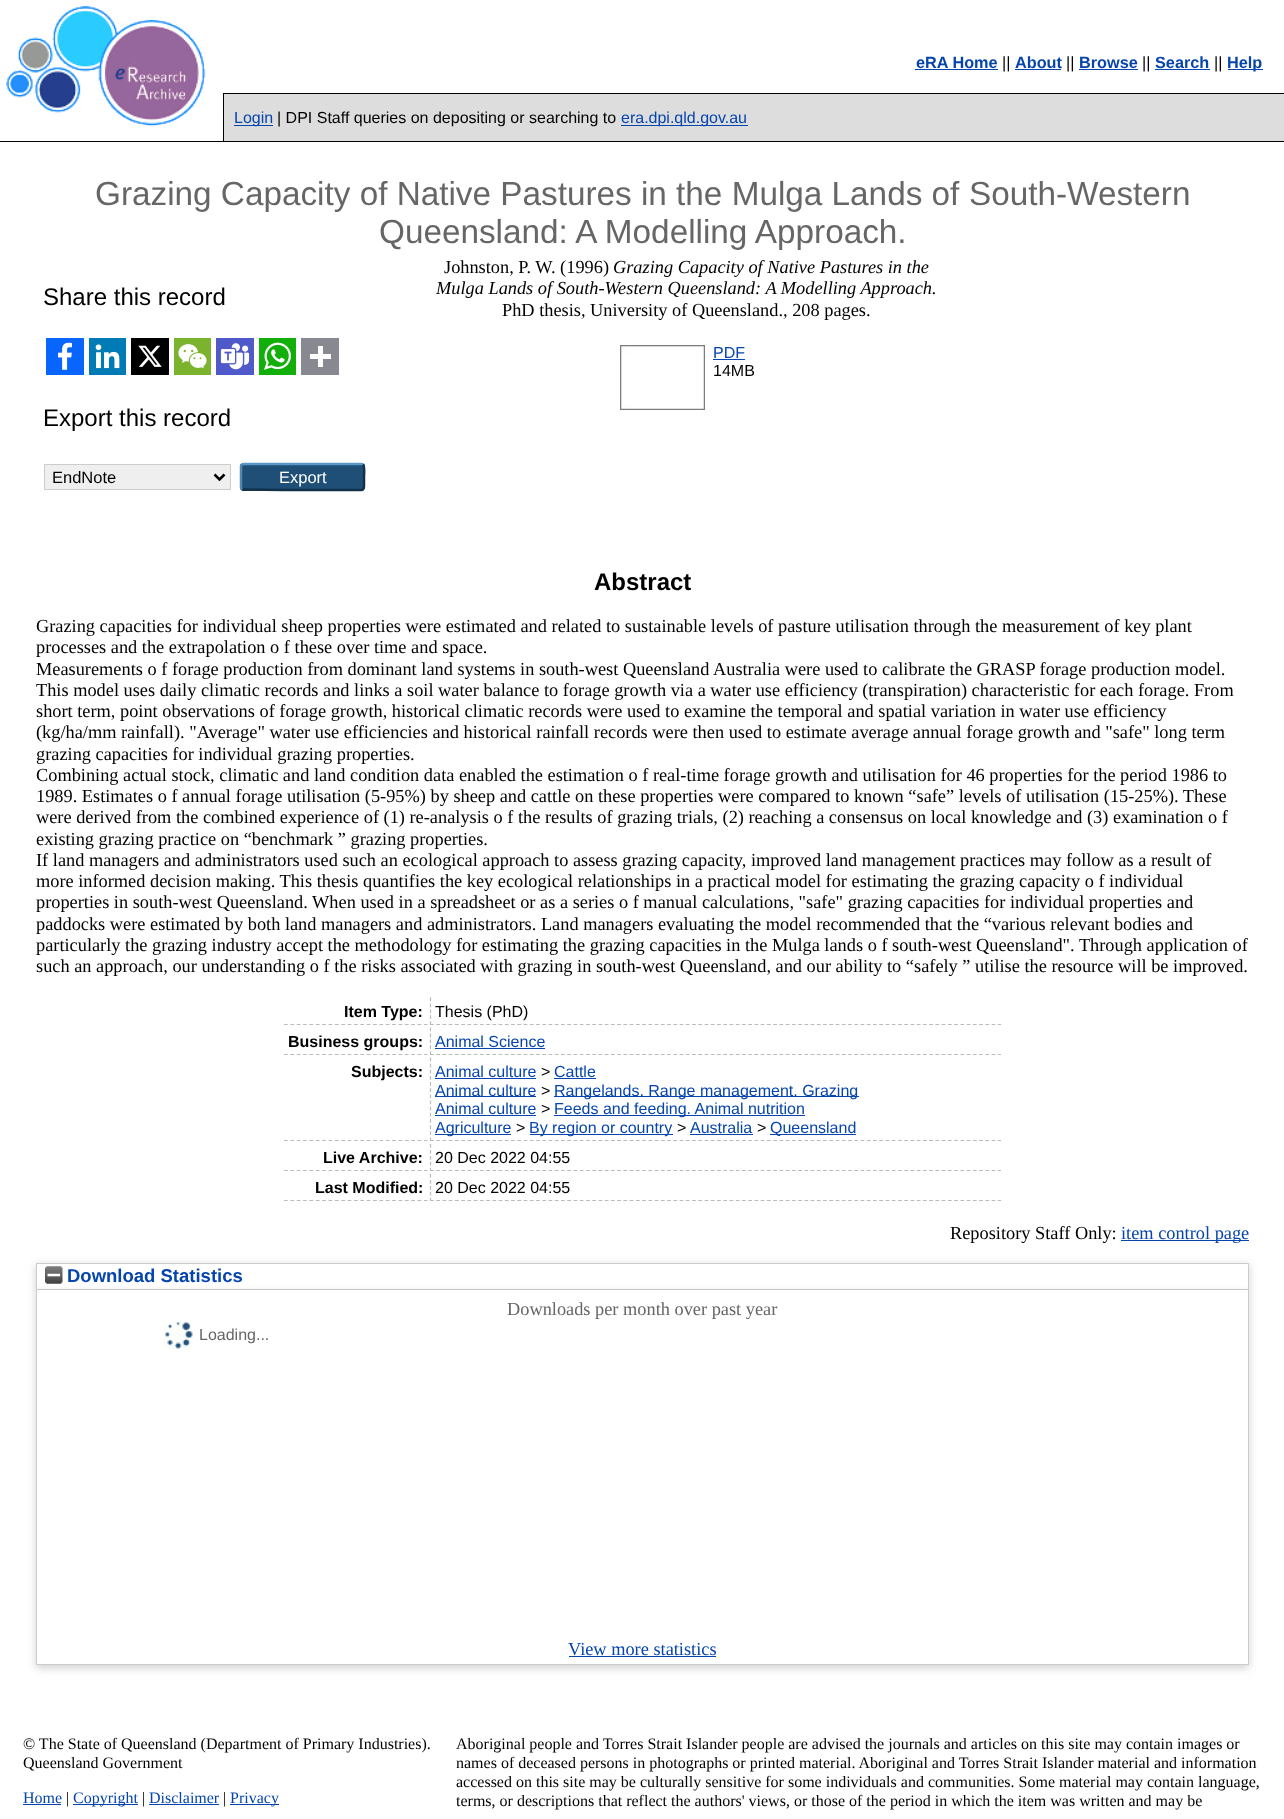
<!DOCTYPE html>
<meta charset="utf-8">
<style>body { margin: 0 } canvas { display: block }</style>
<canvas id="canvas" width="1284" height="1819"></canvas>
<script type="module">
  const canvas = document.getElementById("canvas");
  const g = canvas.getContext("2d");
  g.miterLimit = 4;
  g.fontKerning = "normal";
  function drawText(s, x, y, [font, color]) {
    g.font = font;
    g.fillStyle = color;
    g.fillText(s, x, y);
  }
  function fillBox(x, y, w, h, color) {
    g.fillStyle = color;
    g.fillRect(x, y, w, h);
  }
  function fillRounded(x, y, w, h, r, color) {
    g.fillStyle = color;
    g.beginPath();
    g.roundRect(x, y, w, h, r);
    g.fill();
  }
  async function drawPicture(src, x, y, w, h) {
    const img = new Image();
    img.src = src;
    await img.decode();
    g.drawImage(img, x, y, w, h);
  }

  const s1 = ["bold 16.25px Liberation Sans", "#0645AD"];
  const s2 = ["16.25px Liberation Sans", "#000000"];
  const s3 = ["16px Liberation Sans", "#0645AD"];
  const s4 = ["16px Liberation Sans", "#000000"];
  const s5 = ["33.3px Liberation Sans", "#666666"];
  const s6 = ["18.33px Liberation Serif", "#000000"];
  const s7 = ["italic 18.33px Liberation Serif", "#000000"];
  const s8 = ["bold 24px Liberation Sans", "#000000"];
  const s9 = ["bold 16px Liberation Sans", "#000000"];
  const s10 = ["18.33px Liberation Serif", "#0645AD"];
  const s11 = ["24px Liberation Sans", "#000000"];
  const s12 = ["16.5px Liberation Sans", "#000000"];
  const s13 = ["16.5px Liberation Sans", "#FFFFFF"];
  const s14 = ["bold 18.5px Liberation Sans", "#0645AD"];
  const s15 = ["18.33px Liberation Serif", "#666666"];
  const s16 = ["16px Liberation Sans", "#666666"];
  const s17 = ["16px Liberation Serif", "#000000"];
  const s18 = ["16px Liberation Serif", "#0645AD"];

  fillBox(0, 0, 1284, 1819, "#FFFFFF");
  fillBox(0, 141, 1284, 1, "#000000");
  await drawPicture("pic1.png", 6, 6, 200, 121);
  drawText("eRA Home", 916, 68, s1);
  fillBox(915, 69, 83, 1, "#0645AD");
  drawText("||", 1002, 68, s2);
  drawText("About", 1015, 68, s1);
  fillBox(1015, 69, 46, 1, "#0645AD");
  drawText("||", 1066, 68, s2);
  drawText("Browse", 1079, 68, s1);
  fillBox(1079, 69, 59, 1, "#0645AD");
  drawText("||", 1142, 68, s2);
  drawText("Search", 1155, 68, s1);
  fillBox(1155, 69, 55, 1, "#0645AD");
  drawText("||", 1214, 68, s2);
  fillBox(1228, 69, 35, 1, "#0645AD");
  drawText("Help", 1227, 68, s1);
  fillBox(224, 94, 1060, 47, "#DDDDDD");
  fillBox(223, 93, 1061, 1, "#000000");
  fillBox(223, 93, 1, 48, "#000000");
  fillBox(234, 125, 39, 1, "#0645AD");
  drawText("Login", 234, 123, s3);
  drawText("| DPI Staff queries on depositing or searching to", 277, 123, s4);
  fillBox(621, 125, 127, 1, "#0645AD");
  drawText("era.dpi.qld.gov.au", 621, 123, s3);
  drawText("Grazing Capacity of Native Pastures in the Mulga Lands of", 95, 205, s5);
  drawText("South-Western", 969, 205, s5);
  drawText("Queensland: A Modelling Approach.", 379, 243, s5);
  drawText("Johnston, P. W. (1996)", 444, 273, s6);
  drawText("Grazing Capacity of Native Pastures in the", 613, 273, s7);
  drawText("Mulga Lands of South-Western Queensland: A Modelling Approach.", 436, 294, s7);
  drawText("PhD thesis, University of Queensland., 208 pages.", 502, 316, s6);
  await drawPicture("pic2.png", 620, 345, 85, 65);
  drawText("PDF", 713, 358, s3);
  fillBox(713, 359, 32, 1, "#0645AD");
  drawText("14MB", 713, 376, s4);
  drawText("Abstract", 594, 590, s8);
  drawText("Grazing capacities for individual sheep properties were estimated and related to sustainable levels of pasture utilisation through the measurement of key plant", 36, 632, s6);
  drawText("processes and the extrapolation o f these over time and space.", 36, 653, s6);
  drawText("Measurements o f forage production from dominant land systems in south-west Queensland Australia were used to calibrate the GRASP forage production model.", 36, 675, s6);
  drawText("This model uses daily climatic records and links a soil water balance to forage growth via a water use efficiency (transpiration) characteristic for each forage. From", 36, 696, s6);
  drawText("short term, point observations of forage growth, historical climatic records were used to examine the temporal and spatial variation in water use efficiency", 36, 717, s6);
  drawText("(kg/ha/mm rainfall). \"Average\" water use efficiencies and historical rainfall records were then used to estimate average annual forage growth and \"safe\" long term", 36, 738, s6);
  drawText("grazing capacities for individual grazing properties.", 36, 760, s6);
  drawText("Combining actual stock, climatic and land condition data enabled the estimation o f real-time forage growth and utilisation for 46 properties for the period 1986 to", 36, 781, s6);
  drawText("1989. Estimates o f annual forage utilisation (5-95%) by sheep and cattle on these properties were compared to known “safe” levels of utilisation (15-25%). These", 36, 802, s6);
  drawText("were derived from the combined experience of (1) re-analysis o f the results of grazing trials, (2) reaching a consensus on local knowledge and (3) examination o f", 36, 823, s6);
  drawText("existing grazing practice on “benchmark ” grazing properties.", 36, 845, s6);
  drawText("If land managers and administrators used such an ecological approach to assess grazing capacity, improved land management practices may follow as a result of", 36, 866, s6);
  drawText("more informed decision making. This thesis quantifies the key ecological relationships in a practical model for estimating the grazing capacity o f individual", 36, 887, s6);
  drawText("properties in south-west Queensland. When used in a spreadsheet or as a series o f manual calculations, \"safe\" grazing capacities for individual properties and", 36, 908, s6);
  drawText("paddocks were estimated by both land managers and administrators. Land managers evaluating the model recommended that the “various relevant bodies and", 36, 930, s6);
  drawText("particularly the grazing industry accept the methodology for estimating the grazing capacities in the Mulga lands o f south-west Queensland\". Through application of", 36, 951, s6);
  drawText("such an approach, our understanding o f the risks associated with grazing in south-west Queensland, and our ability to “safely ” utilise the resource will be improved.", 36, 972, s6);
  g.beginPath();
  g.moveTo(284, 1024.5);
  g.lineTo(427.5, 1024.5);
  g.strokeStyle = "#BBBBBB";
  g.lineWidth = 1.2;
  g.setLineDash([3.75, 2.61]);
  g.stroke();
  drawText("Item Type:", 344, 1017, s9);
  g.beginPath();
  g.moveTo(430, 1024.5);
  g.lineTo(1001, 1024.5);
  g.setLineDash([3.75, 2.49]);
  g.stroke();
  g.beginPath();
  g.moveTo(430.5, 997.5);
  g.lineTo(430.5, 1025);
  g.setLineDash([3.75, 2.19]);
  g.stroke();
  drawText("Thesis (PhD)", 435, 1017, s4);
  g.beginPath();
  g.moveTo(284, 1054.5);
  g.lineTo(427.5, 1054.5);
  g.setLineDash([3.75, 2.61]);
  g.stroke();
  drawText("Business groups:", 288, 1047, s9);
  g.beginPath();
  g.moveTo(430, 1054.5);
  g.lineTo(1001, 1054.5);
  g.setLineDash([3.75, 2.49]);
  g.stroke();
  g.beginPath();
  g.moveTo(430.5, 1027.5);
  g.lineTo(430.5, 1055);
  g.setLineDash([3.75, 2.19]);
  g.stroke();
  drawText("Animal Science", 435, 1047, s3);
  fillBox(435, 1048, 110, 1, "#0645AD");
  g.beginPath();
  g.moveTo(284, 1140.5);
  g.lineTo(427.5, 1140.5);
  g.setLineDash([3.75, 2.61]);
  g.stroke();
  drawText("Subjects:", 351, 1077, s9);
  g.beginPath();
  g.moveTo(430, 1140.5);
  g.lineTo(1001, 1140.5);
  g.setLineDash([3.75, 2.49]);
  g.stroke();
  g.beginPath();
  g.moveTo(430.5, 1057.5);
  g.lineTo(430.5, 1141);
  g.setLineDash([3.75, 2.4]);
  g.stroke();
  drawText("Animal culture", 435, 1077, s3);
  fillBox(435, 1078, 101, 1, "#0645AD");
  drawText(">", 541, 1077, s4);
  drawText("Cattle", 554, 1077, s3);
  fillBox(554, 1078, 42, 1, "#0645AD");
  fillBox(435, 1096, 101, 1, "#0645AD");
  drawText("Animal culture", 435, 1096, s3);
  drawText(">", 541, 1096, s4);
  fillBox(554, 1096, 305, 1, "#0645AD");
  drawText("Rangelands. Range management. Grazing", 554, 1096, s3);
  drawText("Animal culture", 435, 1114, s3);
  fillBox(435, 1115, 101, 1, "#0645AD");
  drawText(">", 541, 1114, s4);
  fillBox(554, 1115, 251, 1, "#0645AD");
  drawText("Feeds and feeding. Animal nutrition", 554, 1114, s3);
  fillBox(435, 1134, 76, 1, "#0645AD");
  drawText("Agriculture", 435, 1133, s3);
  drawText(">", 516, 1133, s4);
  fillBox(530, 1134, 143, 1, "#0645AD");
  drawText("By region or country", 529, 1133, s3);
  drawText(">", 677, 1133, s4);
  drawText("Australia", 690, 1133, s3);
  fillBox(690, 1134, 63, 1, "#0645AD");
  drawText(">", 757, 1133, s4);
  fillBox(770, 1134, 86, 1, "#0645AD");
  drawText("Queensland", 770, 1133, s3);
  g.beginPath();
  g.moveTo(284, 1170.5);
  g.lineTo(427.5, 1170.5);
  g.setLineDash([3.75, 2.61]);
  g.stroke();
  drawText("Live Archive:", 323, 1163, s9);
  g.beginPath();
  g.moveTo(430, 1170.5);
  g.lineTo(1001, 1170.5);
  g.setLineDash([3.75, 2.49]);
  g.stroke();
  g.beginPath();
  g.moveTo(430.5, 1144);
  g.lineTo(430.5, 1171);
  g.setLineDash([3.75, 2.19]);
  g.stroke();
  drawText("20 Dec 2022 04:55", 435, 1163, s4);
  g.beginPath();
  g.moveTo(284, 1200.5);
  g.lineTo(427.5, 1200.5);
  g.setLineDash([3.75, 2.61]);
  g.stroke();
  drawText("Last Modified:", 315, 1193, s9);
  g.beginPath();
  g.moveTo(430, 1200.5);
  g.lineTo(1001, 1200.5);
  g.setLineDash([3.75, 2.49]);
  g.stroke();
  g.beginPath();
  g.moveTo(430.5, 1174);
  g.lineTo(430.5, 1201);
  g.setLineDash([3.75, 2.19]);
  g.stroke();
  drawText("20 Dec 2022 04:55", 435, 1193, s4);
  drawText("Repository Staff Only:", 950, 1239, s6);
  fillBox(1121, 1240, 128, 1, "#0645AD");
  drawText("item control page", 1121, 1239, s10);
  drawText("Share this record", 43, 305, s11);
  fillBox(46, 338, 38, 37, "#0866FF");
  fillBox(89, 338, 37, 37, "#007BB5");
  fillBox(131, 338, 38, 37, "#000000");
  fillBox(174, 338, 37, 37, "#7BB32E");
  fillBox(216, 338, 38, 37, "#5059C9");
  fillBox(259, 338, 37, 37, "#12AF0A");
  fillBox(301, 338, 38, 37, "#888990");
  await drawPicture("pic3.png", 58, 342, 14, 28);
  await drawPicture("pic4.png", 95, 344, 25, 25);
  await drawPicture("pic5.png", 138, 345, 24, 22);
  await drawPicture("pic6.png", 178, 344, 29, 25);
  await drawPicture("pic7.png", 220, 343, 30, 27);
  await drawPicture("pic8.png", 264, 342, 27, 28);
  fillBox(318, 346, 5, 21, "#FFFFFF");
  fillBox(310, 354, 21, 5, "#FFFFFF");
  drawText("Export this record", 43, 426, s11);
  g.fillStyle = "#EFEFEF";
  g.beginPath();
  g.rect(44.5, 464.5, 186, 25);
  g.fill();
  g.strokeStyle = "#CCCCCC";
  g.lineWidth = 1;
  g.setLineDash([]);
  g.stroke();
  g.beginPath();
  g.moveTo(214.5, 474.5);
  g.lineTo(219.5, 479.5);
  g.lineTo(224.5, 474.5);
  g.strokeStyle = "#000000";
  g.lineWidth = 2.5;
  g.stroke();
  drawText("EndNote", 52, 483, s12);
  fillRounded(240, 463, 125, 28, 4, "#1F4F76");
  g.beginPath();
  g.moveTo(242, 464.5);
  g.lineTo(244, 464);
  g.lineTo(361.5, 464);
  g.lineTo(363, 464.5);
  g.strokeStyle = "#5B97C7";
  g.stroke();
  g.beginPath();
  g.moveTo(363, 464.5);
  g.bezierCurveTo(365, 466.5, 364, 474.5, 364, 477);
  g.lineTo(364, 484);
  g.bezierCurveTo(364, 486, 364.5, 490, 361, 490);
  g.lineTo(283, 490);
  g.lineTo(242.5, 489.5);
  g.lineTo(242, 489.5);
  g.strokeStyle = "#13324A";
  g.stroke();
  g.beginPath();
  g.moveTo(242, 489.5);
  g.bezierCurveTo(241.5, 489, 241, 488, 241, 487.5);
  g.lineTo(241, 466);
  g.bezierCurveTo(241, 465.5, 241.5, 465, 242, 464.5);
  g.strokeStyle = "#5287B3";
  g.stroke();
  drawText("Export", 279, 483, s13);
  g.fillStyle = "rgba(100, 100, 100, 0.3)";
  g.filter = "blur(4px)";
  g.beginPath();
  g.rect(36, 1265, 1213, 28);
  g.fill();
  g.filter = "none";
  g.fillStyle = "#FFFFFF";
  g.beginPath();
  g.rect(36.5, 1263.5, 1212, 26);
  g.fill();
  g.strokeStyle = "#CCCCCC";
  g.lineWidth = 1;
  g.stroke();
  g.fillStyle = "rgba(100, 100, 100, 0.3)";
  g.filter = "blur(4px)";
  g.beginPath();
  g.rect(36, 1293, 1213, 375);
  g.fill();
  g.filter = "none";
  await drawPicture("pic9.png", 45, 1266, 18, 18);
  drawText("Download Statistics", 67, 1282, s14);
  fillBox(37, 1290, 1211, 374, "#FFFFFF");
  fillBox(1248, 1290, 1, 375, "#CCCCCC");
  fillBox(36, 1664, 1213, 1, "#CCCCCC");
  fillBox(36, 1290, 1, 375, "#CCCCCC");
  drawText("Downloads per month over past year", 507, 1315, s15);
  await drawPicture("pic10.png", 164, 1322, 29, 27);
  drawText("Loading...", 199, 1340, s16);
  drawText("View more statistics", 568, 1655, s10);
  fillBox(569, 1656, 147, 1, "#0645AD");
  drawText("© The State of Queensland (Department of Primary Industries).", 23, 1749, s17);
  drawText("Queensland Government", 23, 1768, s17);
  drawText("Home", 23, 1803, s18);
  fillBox(23, 1804, 38, 1, "#0645AD");
  drawText("|", 66, 1803, s17);
  fillBox(73, 1804, 65, 1, "#0645AD");
  drawText("Copyright", 73, 1803, s18);
  drawText("|", 142, 1803, s17);
  drawText("Disclaimer", 149, 1803, s18);
  fillBox(149, 1804, 70, 1, "#0645AD");
  drawText("|", 223, 1803, s17);
  fillBox(230, 1804, 49, 1, "#0645AD");
  drawText("Privacy", 230, 1803, s18);
  drawText("Aboriginal people and Torres Strait Islander people are advised the journals and articles on this site may contain images or", 456, 1749, s17);
  drawText("names of deceased persons in photographs or printed material. Aboriginal and Torres Strait Islander material and information", 456, 1768, s17);
  drawText("accessed on this site may be culturally sensitive for some individuals and communities. Some material may contain language,", 456, 1787, s17);
  drawText("terms, or descriptions that reflect the authors' views, or those of the period in which the item was written and may be", 456, 1806, s17);
</script>
